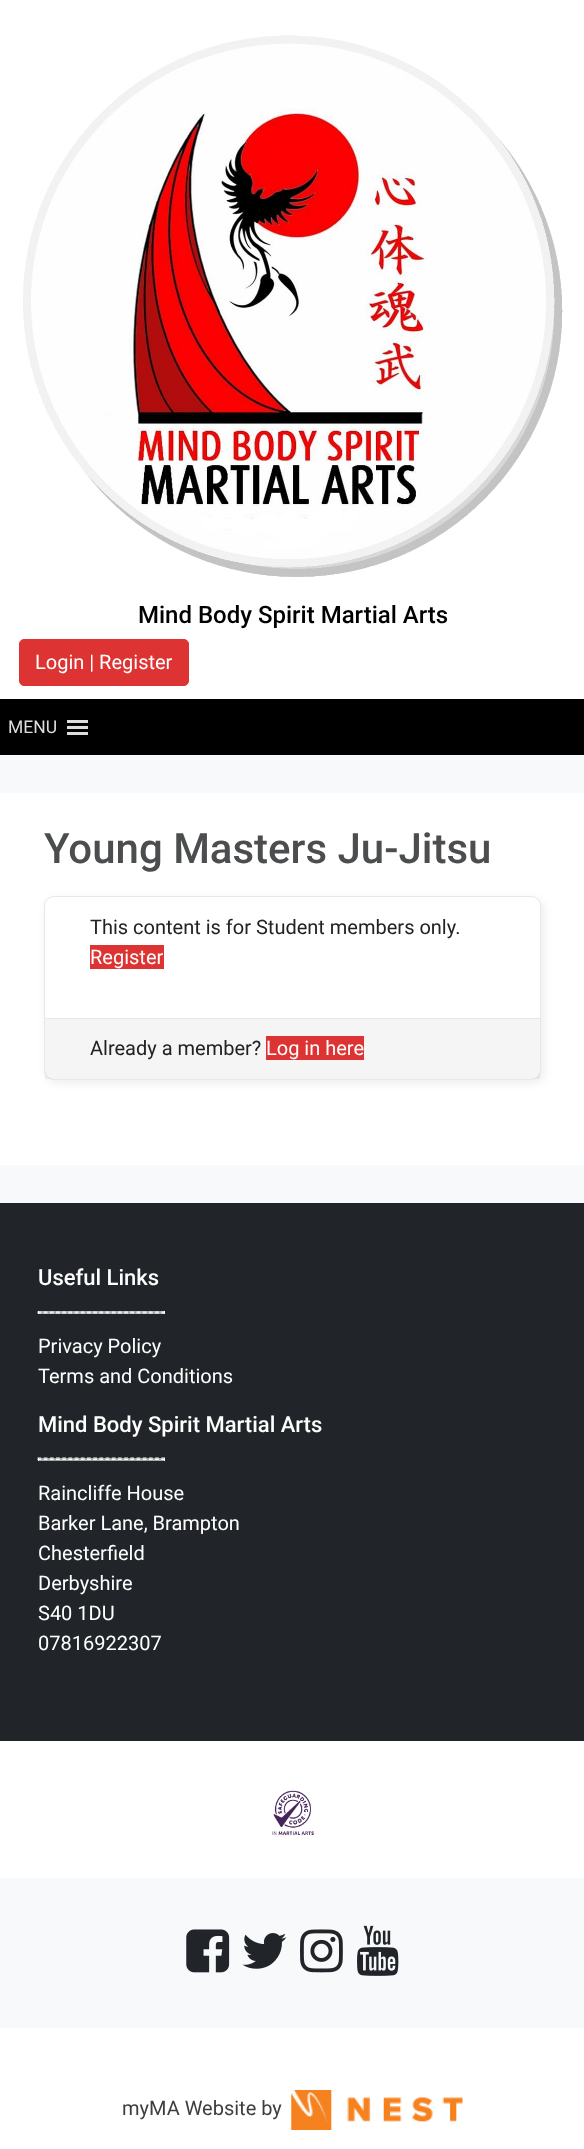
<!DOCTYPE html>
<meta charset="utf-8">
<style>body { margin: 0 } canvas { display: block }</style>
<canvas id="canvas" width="584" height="2149"></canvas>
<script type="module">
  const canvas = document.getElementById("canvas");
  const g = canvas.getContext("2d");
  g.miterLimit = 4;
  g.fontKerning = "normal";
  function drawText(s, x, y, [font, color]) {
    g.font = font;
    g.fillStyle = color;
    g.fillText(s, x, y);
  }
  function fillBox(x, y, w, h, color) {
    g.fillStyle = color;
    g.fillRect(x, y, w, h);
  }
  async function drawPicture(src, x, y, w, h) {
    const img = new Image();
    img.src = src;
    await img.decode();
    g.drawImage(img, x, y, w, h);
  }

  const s1 = ["500 24px Roboto", "#000000"];
  const s2 = ["20px Roboto", "#FFFFFF"];
  const s3 = ["17.5px Roboto", "#DDDDDD"];
  const s4 = ["500 42px Roboto", "#4B4D4E"];
  const s5 = ["20px Roboto", "#222222"];
  const s6 = ["500 22px Roboto", "#FFFFFF"];
  const s7 = ["20px Roboto", "#3E3E3E"];

  fillBox(0, 0, 584, 2149, "#FFFFFF");
  await drawPicture("pic1.png", 23, 35, 540, 542);
  drawText("Mind Body Spirit Martial Arts", 138, 623, s1);
  g.fillStyle = "#DD3333";
  g.beginPath();
  g.roundRect(19.5, 639.5, 169, 46, 4.5);
  g.fill();
  g.strokeStyle = "#DD3333";
  g.stroke();
  drawText("Login | Register", 35, 669, s2);
  fillBox(0, 699, 584, 56, "#000000");
  drawText("MENU", 8, 733, s3);
  await drawPicture("pic2.png", 67, 720, 21, 15);
  fillBox(0, 755, 584, 448, "#F8F9FA");
  fillBox(0, 793, 584, 372, "#FFFFFF");
  drawText("Young Masters Ju-Jitsu", 44, 863, s4);
  g.fillStyle = "rgba(0, 0, 0, 0.07)";
  g.filter = "blur(4.5px)";
  g.beginPath();
  g.roundRect(46, 899, 498, 184, 10);
  g.fill();
  g.filter = "none";
  g.fillStyle = "#FFFFFF";
  g.beginPath();
  g.roundRect(44.5, 896.5, 496, 183, 9.5);
  g.fill();
  g.strokeStyle = "#E8E8E8";
  g.stroke();
  drawText("This content is for Student members only.", 90, 934, s5);
  fillBox(90, 945, 74, 24, "#DD3333");
  drawText("Register", 90, 964, s2);
  fillBox(45, 1019, 495, 60, "rgba(0, 0, 0, 0.04)");
  fillBox(45, 1018, 495, 1, "#E8E8E8");
  drawText("Already a member?", 90, 1055, s5);
  fillBox(266, 1036, 98, 24, "#DD3333");
  drawText("Log in here", 266, 1055, s2);
  fillBox(0, 1203, 584, 538, "#212529");
  drawText("Useful Links", 38, 1285, s6);
  fillBox(38, 1311, 127, 3, "#A8A7A7");
  g.beginPath();
  g.moveTo(37.5, 1312);
  g.lineTo(165, 1312);
  g.strokeStyle = "#FFFFFF";
  g.lineWidth = 1.2;
  g.setLineDash([3.75, 2.44]);
  g.stroke();
  fillBox(164, 1311, 1, 3, "#FFFFFF");
  g.beginPath();
  g.moveTo(37.5, 1313);
  g.lineTo(165, 1313);
  g.stroke();
  fillBox(38, 1311, 1, 3, "#FFFFFF");
  drawText("Privacy Policy", 38, 1353, s2);
  drawText("Terms and Conditions", 38, 1383, s2);
  drawText("Mind Body Spirit Martial Arts", 38, 1432, s6);
  fillBox(38, 1458, 127, 3, "#A8A7A7");
  g.beginPath();
  g.moveTo(37.5, 1458);
  g.lineTo(165, 1458);
  g.stroke();
  fillBox(164, 1458, 1, 3, "#FFFFFF");
  g.beginPath();
  g.moveTo(37.5, 1459.5);
  g.lineTo(165, 1459.5);
  g.stroke();
  fillBox(38, 1458, 1, 3, "#FFFFFF");
  drawText("Raincliffe House", 38, 1500, s2);
  drawText("Barker Lane, Brampton", 38, 1530, s2);
  drawText("Chesterfield", 38, 1560, s2);
  drawText("Derbyshire", 38, 1590, s2);
  drawText("S40 1DU", 38, 1620, s2);
  drawText("07816922307", 38, 1650, s2);
  await drawPicture("pic3.png", 272, 1790, 42, 46);
  fillBox(0, 1878, 584, 150, "#F8F9FA");
  await drawPicture("pic4.png", 186, 1929, 44, 44);
  await drawPicture("pic5.png", 242, 1933, 45, 36);
  await drawPicture("pic6.png", 300, 1929, 43, 44);
  await drawPicture("pic7.png", 357, 1925, 42, 51);
  drawText("myMA Website by", 122, 2115, s7);
  await drawPicture("pic8.png", 291, 2090, 172, 40);
</script>
